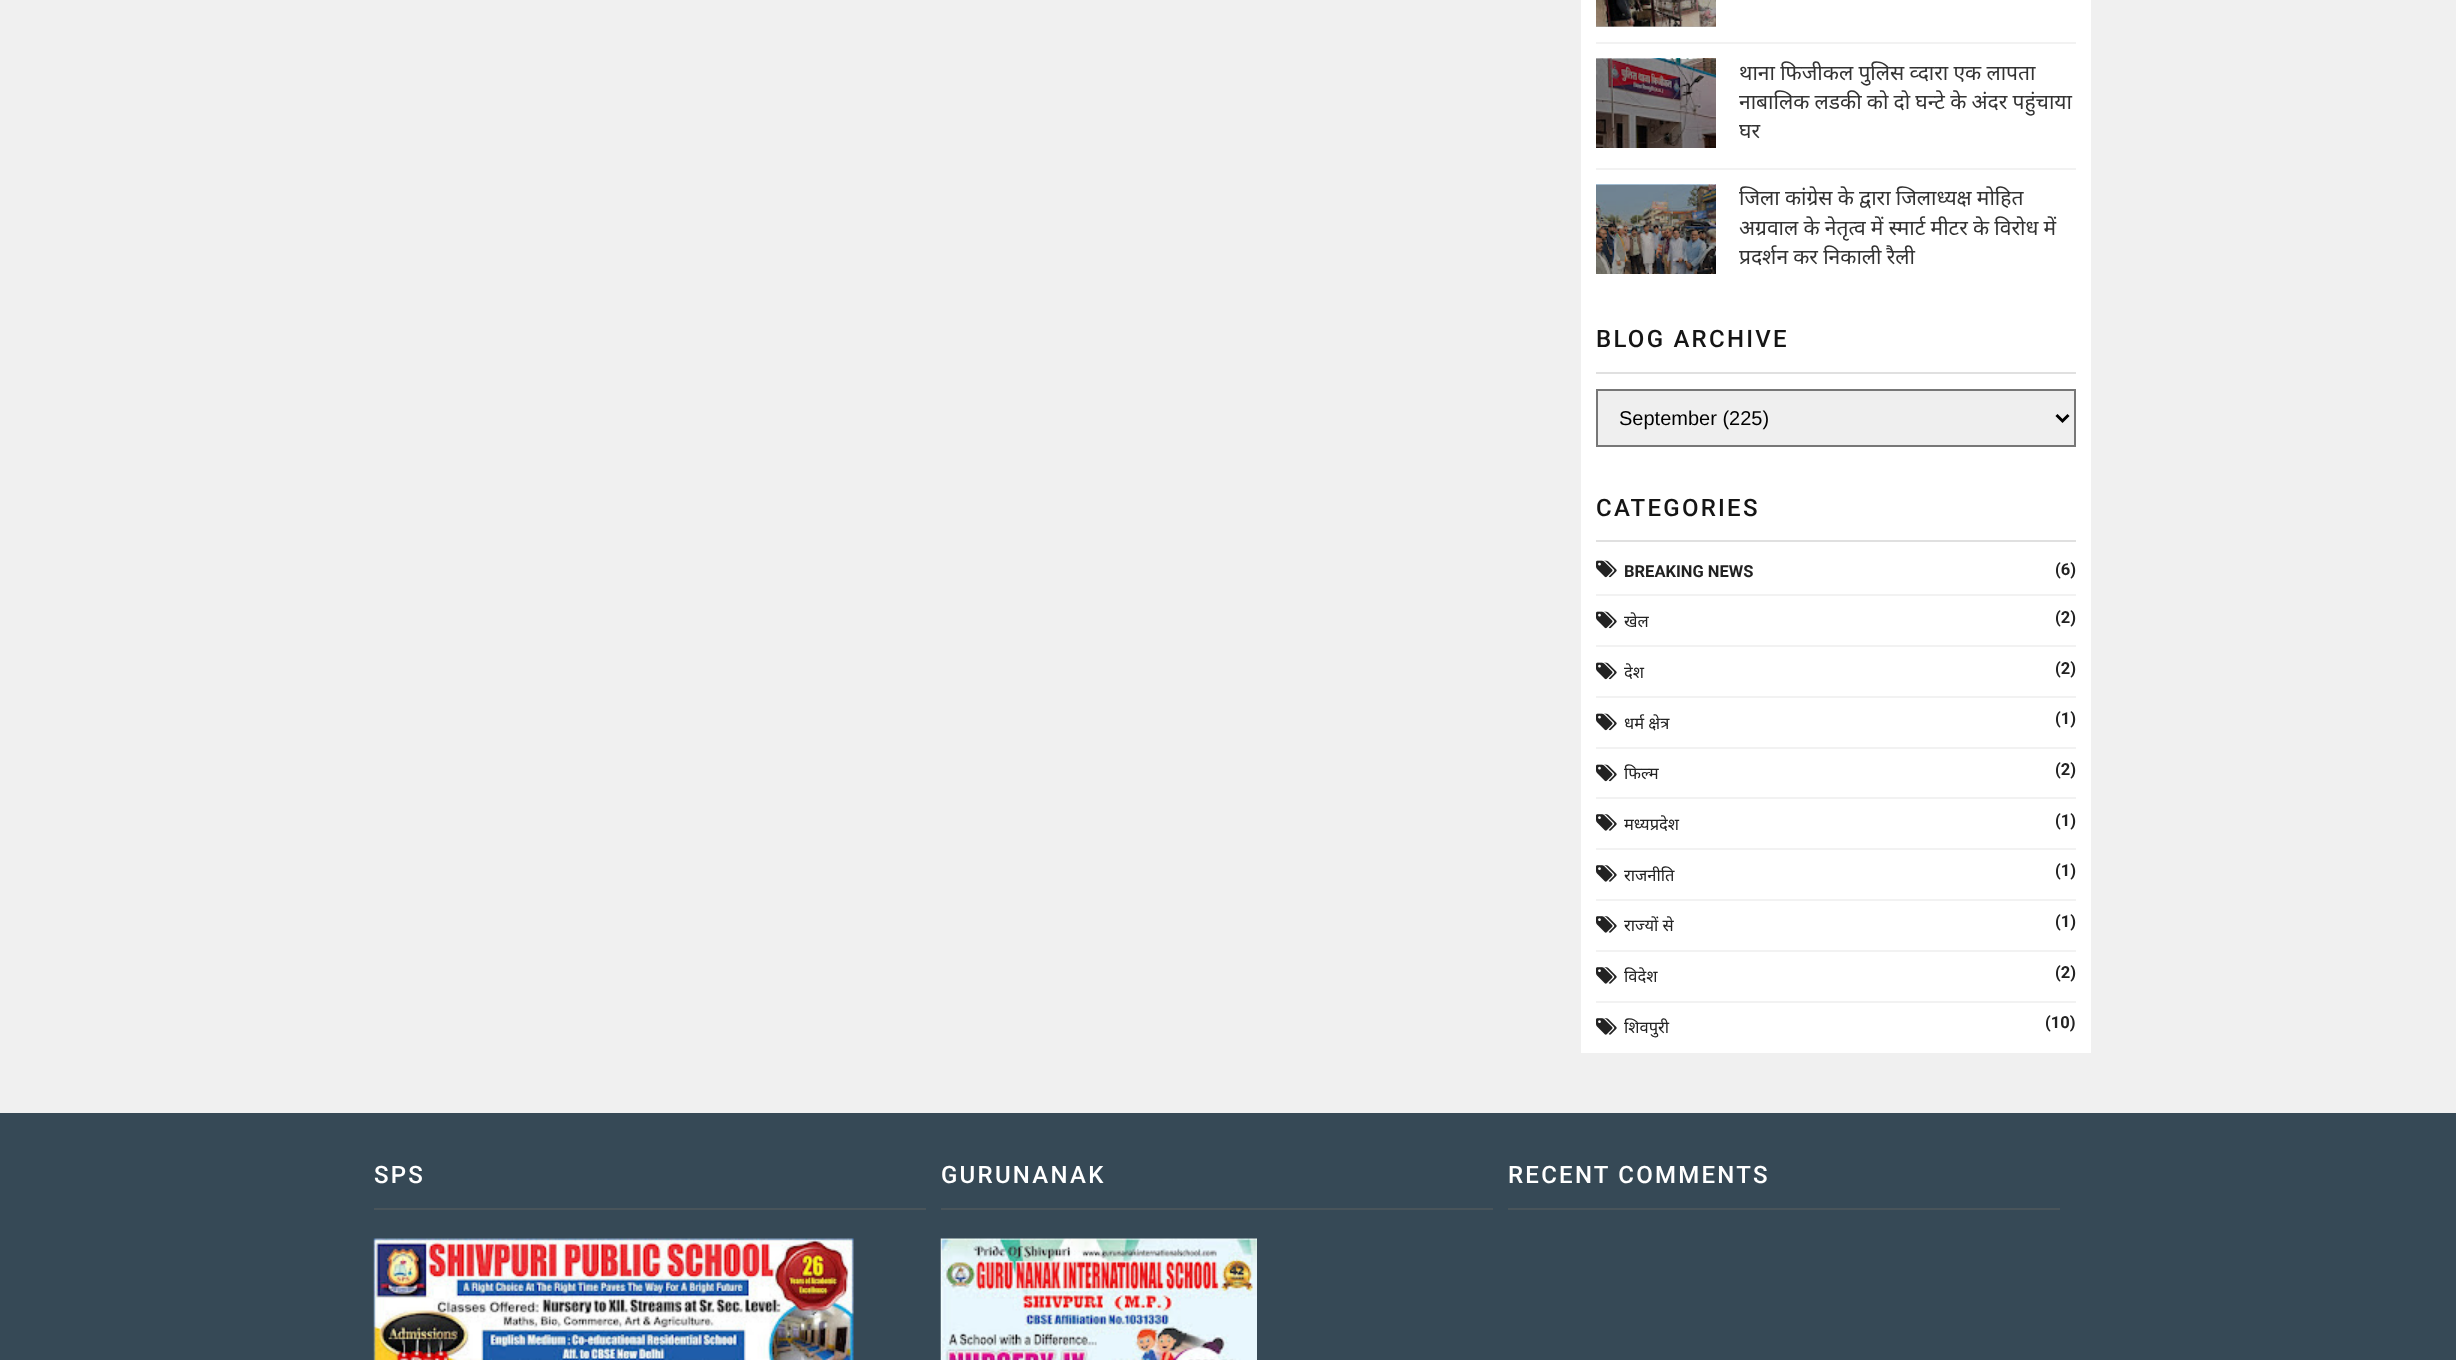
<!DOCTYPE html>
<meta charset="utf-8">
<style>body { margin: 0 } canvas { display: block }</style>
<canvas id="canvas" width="2456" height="1360"></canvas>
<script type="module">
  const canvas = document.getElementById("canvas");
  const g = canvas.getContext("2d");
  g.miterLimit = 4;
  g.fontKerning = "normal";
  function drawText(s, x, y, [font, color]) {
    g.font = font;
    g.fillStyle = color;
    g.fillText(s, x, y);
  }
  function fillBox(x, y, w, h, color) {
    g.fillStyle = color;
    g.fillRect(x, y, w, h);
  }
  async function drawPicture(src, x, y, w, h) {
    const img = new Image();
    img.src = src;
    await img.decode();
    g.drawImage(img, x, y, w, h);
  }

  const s1 = ["21px Noto Sans", "#333333"];
  const s2 = ["500 24px Roboto", "#151515"];
  const s3 = ["20px Liberation Sans", "#000000"];
  const s4 = ["bold 16.5px Roboto", "#222222"];
  const s5 = ["16.5px Noto Sans", "#222222"];
  const s6 = ["500 24px Roboto", "#FFFFFF"];

  fillBox(0, 0, 2456, 1360, "#F0F0F0");
  fillBox(1581, 0, 510, 1053, "#FFFFFF");
  fillBox(1596, 26, 120, 1, "#B3B3B3");
  await drawPicture("pic1.png", 1596, 0, 120, 27);
  fillBox(1596, 42, 480, 2, "#F2F2F2");
  await drawPicture("pic2.png", 1596, 58, 120, 90);
  g.wordSpacing = "-0.25px";
  drawText("थाना फिजीकल पुलिस व्दारा एक लापता", 1739, 80, s1);
  drawText("नाबालिक लडकी को दो घन्टे के अंदर पहुंचाया", 1739, 109, s1);
  g.wordSpacing = "0px";
  drawText("घर", 1739, 138, s1);
  fillBox(1596, 168, 480, 2, "#F2F2F2");
  await drawPicture("pic3.png", 1596, 184, 120, 90);
  g.wordSpacing = "-0.25px";
  drawText("जिला कांग्रेस के द्वारा जिलाध्यक्ष मोहित", 1739, 205, s1);
  drawText("अग्रवाल के नेतृत्व में स्मार्ट मीटर के विरोध में", 1739, 235, s1);
  drawText("प्रदर्शन कर निकाली रैली", 1739, 264, s1);
  fillBox(1596, 372, 480, 2, "#E0E0E0");
  g.letterSpacing = "2.25px";
  g.wordSpacing = "0px";
  drawText("BLOG ARCHIVE", 1596, 347, s2);
  g.fillStyle = "#EFEFEF";
  g.beginPath();
  g.rect(1597, 390, 478, 56);
  g.fill();
  g.strokeStyle = "#777777";
  g.lineWidth = 2;
  g.stroke();
  g.beginPath();
  g.moveTo(2056.5, 415);
  g.lineTo(2062.5, 421);
  g.lineTo(2068.5, 415);
  g.strokeStyle = "#000000";
  g.lineWidth = 3;
  g.stroke();
  g.letterSpacing = "0px";
  drawText("September (225)", 1619, 425, s3);
  fillBox(1596, 540, 480, 2, "#E0E0E0");
  g.letterSpacing = "2.25px";
  drawText("CATEGORIES", 1596, 516, s2);
  fillBox(1596, 594, 480, 2, "#F2F2F2");
  await drawPicture("pic4.png", 1596, 560, 21, 18);
  g.letterSpacing = "0px";
  drawText("BREAKING NEWS", 1624, 577, s4);
  drawText("(6)", 2055, 575, s4);
  fillBox(1596, 645, 480, 2, "#F2F2F2");
  await drawPicture("pic4.png", 1596, 611, 21, 18);
  drawText("खेल", 1624, 627, s5);
  drawText("(2)", 2055, 623, s4);
  fillBox(1596, 696, 480, 2, "#F2F2F2");
  await drawPicture("pic4.png", 1596, 662, 21, 18);
  drawText("देश", 1624, 678, s5);
  drawText("(2)", 2055, 674, s4);
  fillBox(1596, 747, 480, 2, "#F2F2F2");
  await drawPicture("pic4.png", 1596, 713, 21, 18);
  drawText("धर्म क्षेत्र", 1624, 729, s5);
  drawText("(1)", 2055, 724, s4);
  fillBox(1596, 797, 480, 2, "#F2F2F2");
  await drawPicture("pic4.png", 1596, 764, 21, 18);
  drawText("फिल्म", 1624, 779, s5);
  drawText("(2)", 2055, 775, s4);
  fillBox(1596, 848, 480, 2, "#F2F2F2");
  await drawPicture("pic5.png", 1596, 814, 21, 17);
  drawText("मध्यप्रदेश", 1624, 830, s5);
  drawText("(1)", 2055, 826, s4);
  fillBox(1596, 899, 480, 2, "#F2F2F2");
  await drawPicture("pic5.png", 1596, 865, 21, 17);
  drawText("राजनीति", 1624, 881, s5);
  drawText("(1)", 2055, 876, s4);
  fillBox(1596, 950, 480, 2, "#F2F2F2");
  await drawPicture("pic5.png", 1596, 916, 21, 17);
  drawText("राज्यों से", 1624, 931, s5);
  drawText("(1)", 2055, 927, s4);
  fillBox(1596, 1001, 480, 2, "#F2F2F2");
  await drawPicture("pic5.png", 1596, 967, 21, 17);
  drawText("विदेश", 1624, 982, s5);
  drawText("(2)", 2055, 978, s4);
  await drawPicture("pic5.png", 1596, 1018, 21, 17);
  drawText("शिवपुरी", 1624, 1033, s5);
  drawText("(10)", 2045, 1028, s4);
  fillBox(0, 1113, 2456, 247, "#364956");
  fillBox(374, 1208, 552, 2, "#49545A");
  g.letterSpacing = "2.25px";
  drawText("SPS", 374, 1183, s6);
  await drawPicture("pic6.png", 373, 1238, 481, 122);
  fillBox(941, 1208, 552, 2, "#49545A");
  drawText("GURUNANAK", 941, 1183, s6);
  await drawPicture("pic7.png", 940, 1238, 317, 122);
  fillBox(1508, 1208, 552, 2, "#49545A");
  drawText("RECENT COMMENTS", 1508, 1183, s6);
</script>
